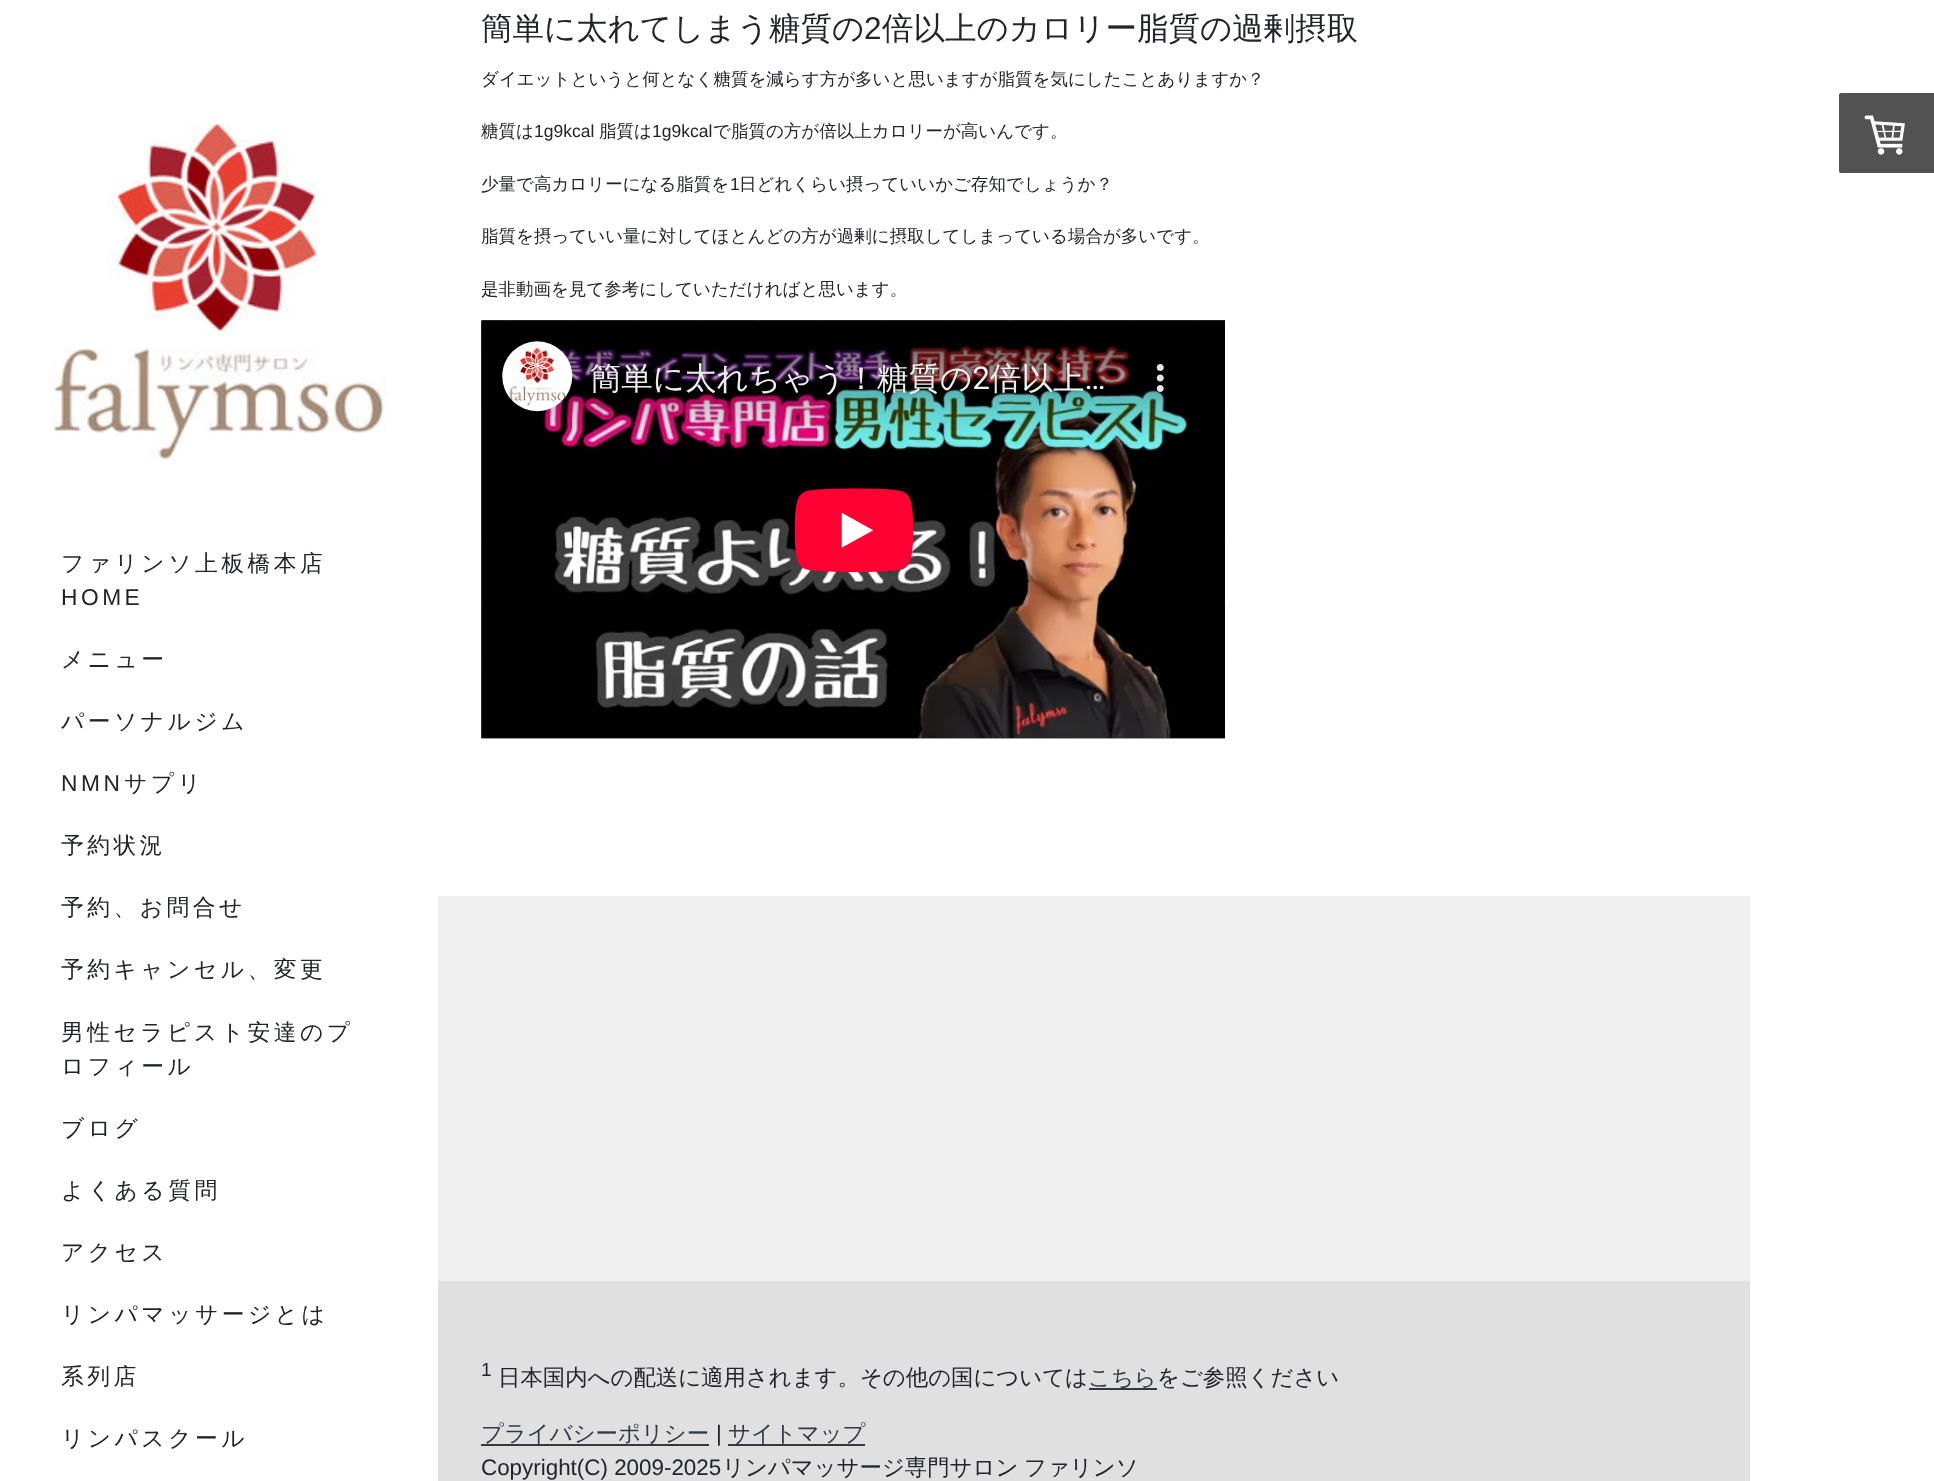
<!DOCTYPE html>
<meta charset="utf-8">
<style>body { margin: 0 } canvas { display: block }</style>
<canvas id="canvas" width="1934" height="1481"></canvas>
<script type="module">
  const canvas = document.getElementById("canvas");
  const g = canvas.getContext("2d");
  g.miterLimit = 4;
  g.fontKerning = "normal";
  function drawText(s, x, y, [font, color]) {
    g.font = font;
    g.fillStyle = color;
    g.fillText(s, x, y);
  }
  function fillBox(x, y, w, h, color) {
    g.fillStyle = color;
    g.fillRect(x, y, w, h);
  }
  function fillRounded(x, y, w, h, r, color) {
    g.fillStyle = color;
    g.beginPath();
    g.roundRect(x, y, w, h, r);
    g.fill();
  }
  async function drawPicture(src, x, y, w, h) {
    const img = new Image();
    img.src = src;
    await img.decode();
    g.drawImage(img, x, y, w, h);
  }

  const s1 = ["500 31.5px WenQuanYi Zen Hei", "#212529"];
  const s2 = ["31.5px Liberation Sans", "#212529"];
  const s3 = ["500 17.5px WenQuanYi Zen Hei", "#212529"];
  const s4 = ["17.5px Liberation Sans", "#212529"];
  const s5 = ["19px Liberation Sans", "#212529"];
  const s6 = ["500 22.4px WenQuanYi Zen Hei", "#212529"];
  const s7 = ["500 22.4px WenQuanYi Zen Hei", "#303A47"];
  const s8 = ["22.4px Liberation Sans", "#212529"];
  const s9 = ["500 22.75px WenQuanYi Zen Hei", "#212529"];
  const s10 = ["22.75px Liberation Sans", "#212529"];

  fillBox(0, 0, 1934, 1481, "#FFFFFF");
  drawText("簡単に太れてしまう糖質の", 481, 39, s1);
  drawText("2", 864, 39, s2);
  drawText("倍以上のカロリー脂質の過剰摂取", 882, 39, s1);
  drawText("ダイエットというと何となく糖質を減らす方が多いと思いますが脂質を気にしたことありますか？", 481, 85, s3);
  drawText("糖質は", 481, 137, s3);
  drawText("1g9kcal", 534, 137, s4);
  drawText("脂質は", 599, 137, s3);
  drawText("1g9kcal", 652, 137, s4);
  drawText("で脂質の方が倍以上カロリーが高いんです。", 713, 137, s3);
  drawText("少量で高カロリーになる脂質を", 481, 190, s3);
  drawText("1", 730, 190, s4);
  drawText("日どれくらい摂っていいかご存知でしょうか？", 739, 190, s3);
  drawText("脂質を摂っていい量に対してほとんどの方が過剰に摂取してしまっている場合が多いです。", 481, 242, s3);
  drawText("是非動画を見て参考にしていただければと思います。", 481, 295, s3);
  await drawPicture("pic1.png", 481, 320, 744, 419);
  fillBox(438, 896, 1312, 385, "#F0F0F0");
  fillBox(438, 1281, 1312, 200, "#E0E0E0");
  drawText("1", 481, 1376, s5);
  drawText("日本国内への配送に適用されます。その他の国については", 498, 1385, s6);
  fillBox(1089, 1388, 68, 2, "#303A47");
  drawText("こちら", 1088, 1385, s7);
  drawText("をご参照ください", 1157, 1385, s6);
  fillBox(481, 1444, 228, 2, "#303A47");
  drawText("プライバシーポリシー", 481, 1441, s7);
  drawText("|", 716, 1441, s8);
  fillBox(728, 1444, 137, 2, "#303A47");
  drawText("サイトマップ", 728, 1441, s7);
  drawText("Copyright(C) 2009-2025", 481, 1475, s8);
  drawText("リンパマッサージ専門サロン", 722, 1475, s6);
  drawText("ファリンソ", 1024, 1475, s6);
  fillRounded(1839, 93, 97, 80, 2, "#525252");
  await drawPicture("pic2.png", 1864, 115, 41, 40);
  await drawPicture("pic3.png", 50, 123, 337, 338);
  g.letterSpacing = "3.5px";
  drawText("ファリンソ上板橋本店", 61, 571, s9);
  drawText("HOME", 61, 605, s10);
  drawText("メニュー", 61, 667, s9);
  drawText("パーソナルジム", 61, 729, s9);
  drawText("NMN", 61, 791, s10);
  drawText("サプリ", 124, 791, s9);
  drawText("予約状況", 61, 853, s9);
  drawText("予約、お問合せ", 61, 915, s9);
  drawText("予約キャンセル、変更", 61, 977, s9);
  drawText("男性セラピスト安達のプ", 61, 1040, s9);
  drawText("ロフィール", 61, 1074, s9);
  drawText("ブログ", 61, 1136, s9);
  drawText("よくある質問", 61, 1198, s9);
  drawText("アクセス", 61, 1260, s9);
  drawText("リンパマッサージとは", 61, 1322, s9);
  drawText("系列店", 61, 1384, s9);
  drawText("リンパスクール", 61, 1446, s9);
</script>
